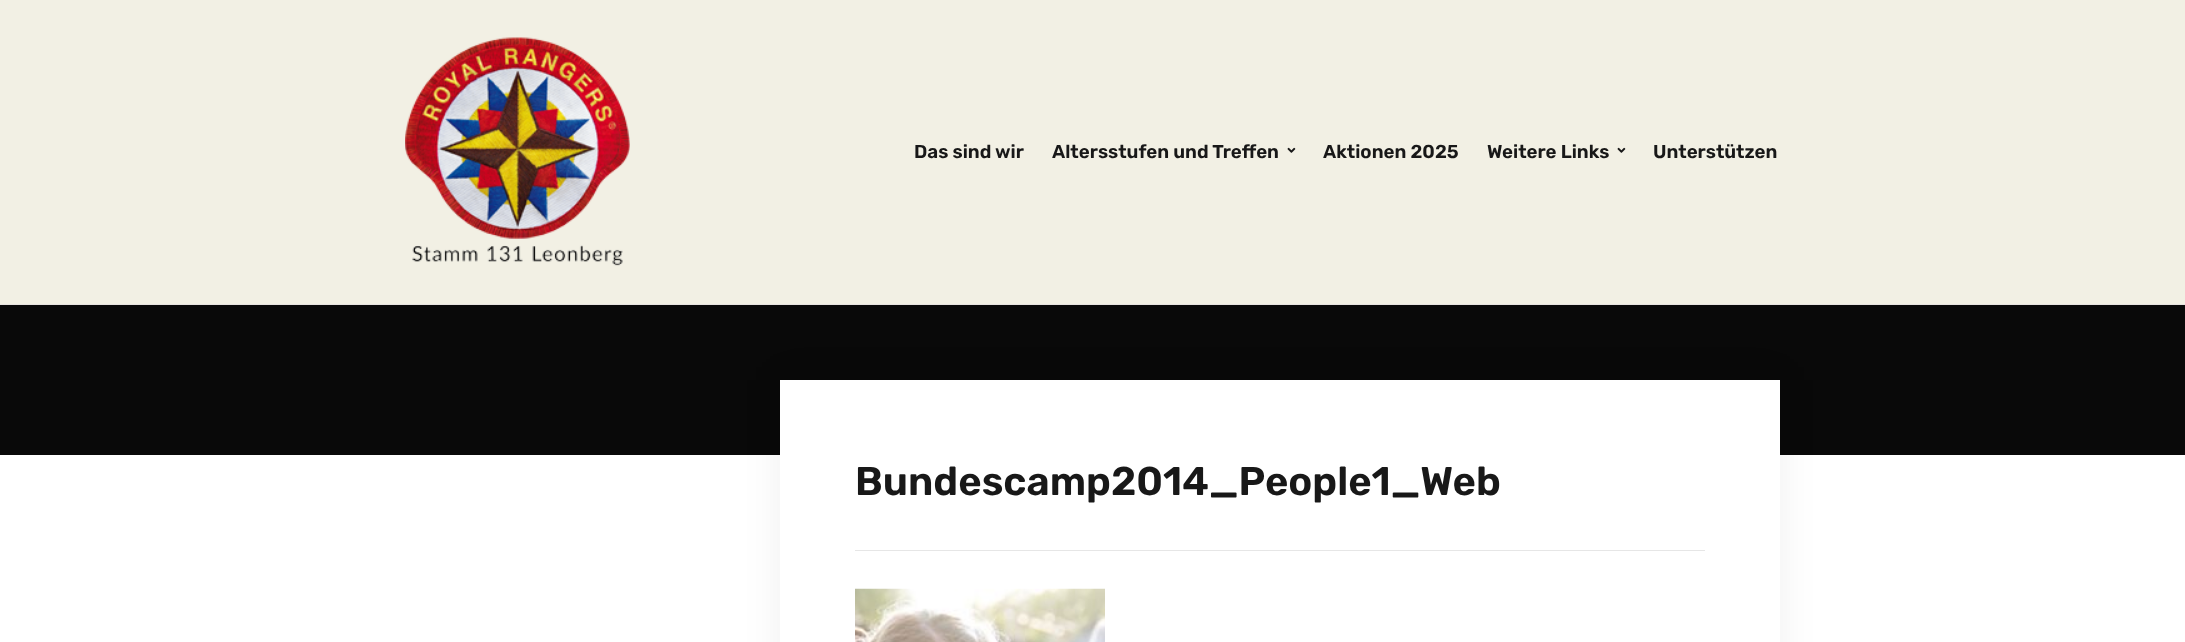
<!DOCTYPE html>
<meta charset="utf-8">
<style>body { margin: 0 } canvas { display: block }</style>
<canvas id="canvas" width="2185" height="642"></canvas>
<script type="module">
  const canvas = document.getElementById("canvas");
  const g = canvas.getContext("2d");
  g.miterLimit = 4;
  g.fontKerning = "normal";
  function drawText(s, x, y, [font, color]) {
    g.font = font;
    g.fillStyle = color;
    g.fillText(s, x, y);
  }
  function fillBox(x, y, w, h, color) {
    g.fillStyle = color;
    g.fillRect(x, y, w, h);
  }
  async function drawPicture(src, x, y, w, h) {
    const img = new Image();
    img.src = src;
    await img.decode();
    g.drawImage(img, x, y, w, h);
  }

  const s1 = ["600 18.75px Rubik", "#181818"];
  const s2 = ["600 40px Rubik", "#181818"];

  fillBox(0, 0, 2185, 642, "#FFFFFF");
  fillBox(0, 0, 2185, 304, "#F2F0E4");
  fillBox(0, 304, 2185, 1, "#E7E3E0");
  await drawPicture("pic1.png", 405, 37, 225, 229);
  drawText("Das sind wir", 914, 158, s1);
  drawText("Altersstufen und Treffen", 1052, 158, s1);
  await drawPicture("pic2.png", 1287, 147, 9, 6);
  drawText("Aktionen 2025", 1323, 158, s1);
  drawText("Weitere Links", 1487, 158, s1);
  await drawPicture("pic2.png", 1617, 147, 9, 6);
  drawText("Unterstützen", 1653, 158, s1);
  fillBox(0, 305, 2185, 150, "#090909");
  g.fillStyle = "rgba(0, 0, 0, 0.06)";
  g.filter = "blur(19px)";
  g.beginPath();
  g.rect(780, 380, 1000, 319);
  g.fill();
  g.filter = "none";
  fillBox(780, 380, 1000, 262, "#FFFFFF");
  fillBox(855, 550, 850, 1, "#E6E6E6");
  drawText("Bundescamp2014_People1_Web", 855, 495, s2);
  await drawPicture("pic3.png", 855, 588, 250, 54);
</script>
